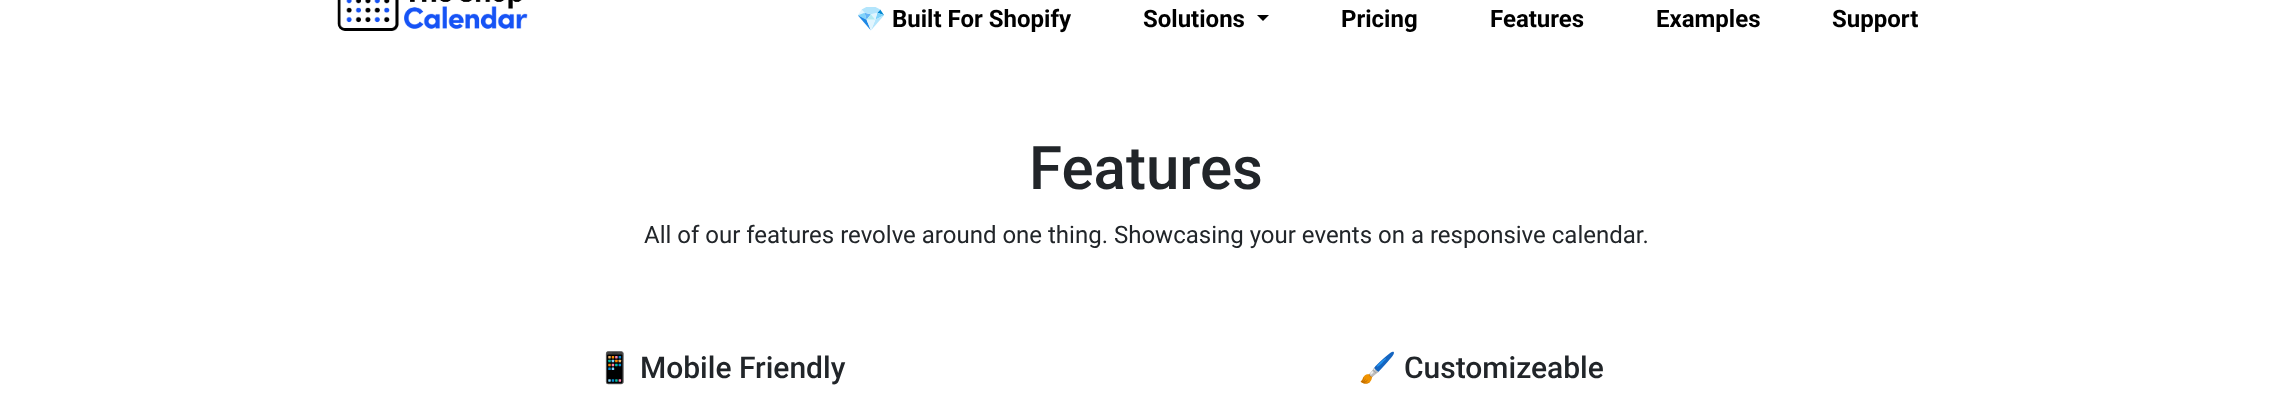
<!DOCTYPE html>
<meta charset="utf-8">
<style>body { margin: 0 } canvas { display: block }</style>
<canvas id="canvas" width="2292" height="417"></canvas>
<script type="module">
  const canvas = document.getElementById("canvas");
  const g = canvas.getContext("2d");
  g.miterLimit = 4;
  g.fontKerning = "normal";
  function drawText(s, x, y, [font, color]) {
    g.font = font;
    g.fillStyle = color;
    g.fillText(s, x, y);
  }
  function fillBox(x, y, w, h, color) {
    g.fillStyle = color;
    g.fillRect(x, y, w, h);
  }
  async function drawPicture(src, x, y, w, h) {
    const img = new Image();
    img.src = src;
    await img.decode();
    g.drawImage(img, x, y, w, h);
  }

  const s1 = ["bold 24px Noto Color Emoji", "#000000"];
  const s2 = ["bold 24px Roboto", "#000000"];
  const s3 = ["500 60px Roboto", "#212529"];
  const s4 = ["24px Roboto", "#212529"];
  const s5 = ["30px Noto Color Emoji", "#212529"];
  const s6 = ["500 30px Roboto", "#212529"];

  fillBox(0, 0, 2292, 417, "#FFFFFF");
  await drawPicture("pic1.png", 337, 0, 191, 31);
  drawText("💎", 856, 27, s1);
  drawText("Built For Shopify", 892, 27, s2);
  drawText("Solutions", 1143, 27, s2);
  g.beginPath();
  g.moveTo(1257, 15);
  g.lineTo(1269, 15);
  g.lineTo(1263, 21);
  g.closePath();
  g.fill();
  drawText("Pricing", 1341, 27, s2);
  drawText("Features", 1490, 27, s2);
  drawText("Examples", 1656, 27, s2);
  drawText("Support", 1832, 27, s2);
  drawText("Features", 1029, 189, s3);
  drawText("All of our features revolve around one thing. Showcasing your events on a responsive calendar.", 644, 243, s4);
  drawText("📱", 596, 378, s5);
  drawText("Mobile Friendly", 640, 378, s6);
  drawText("🖌️", 1359, 378, s5);
  drawText("Customizeable", 1404, 378, s6);
</script>
